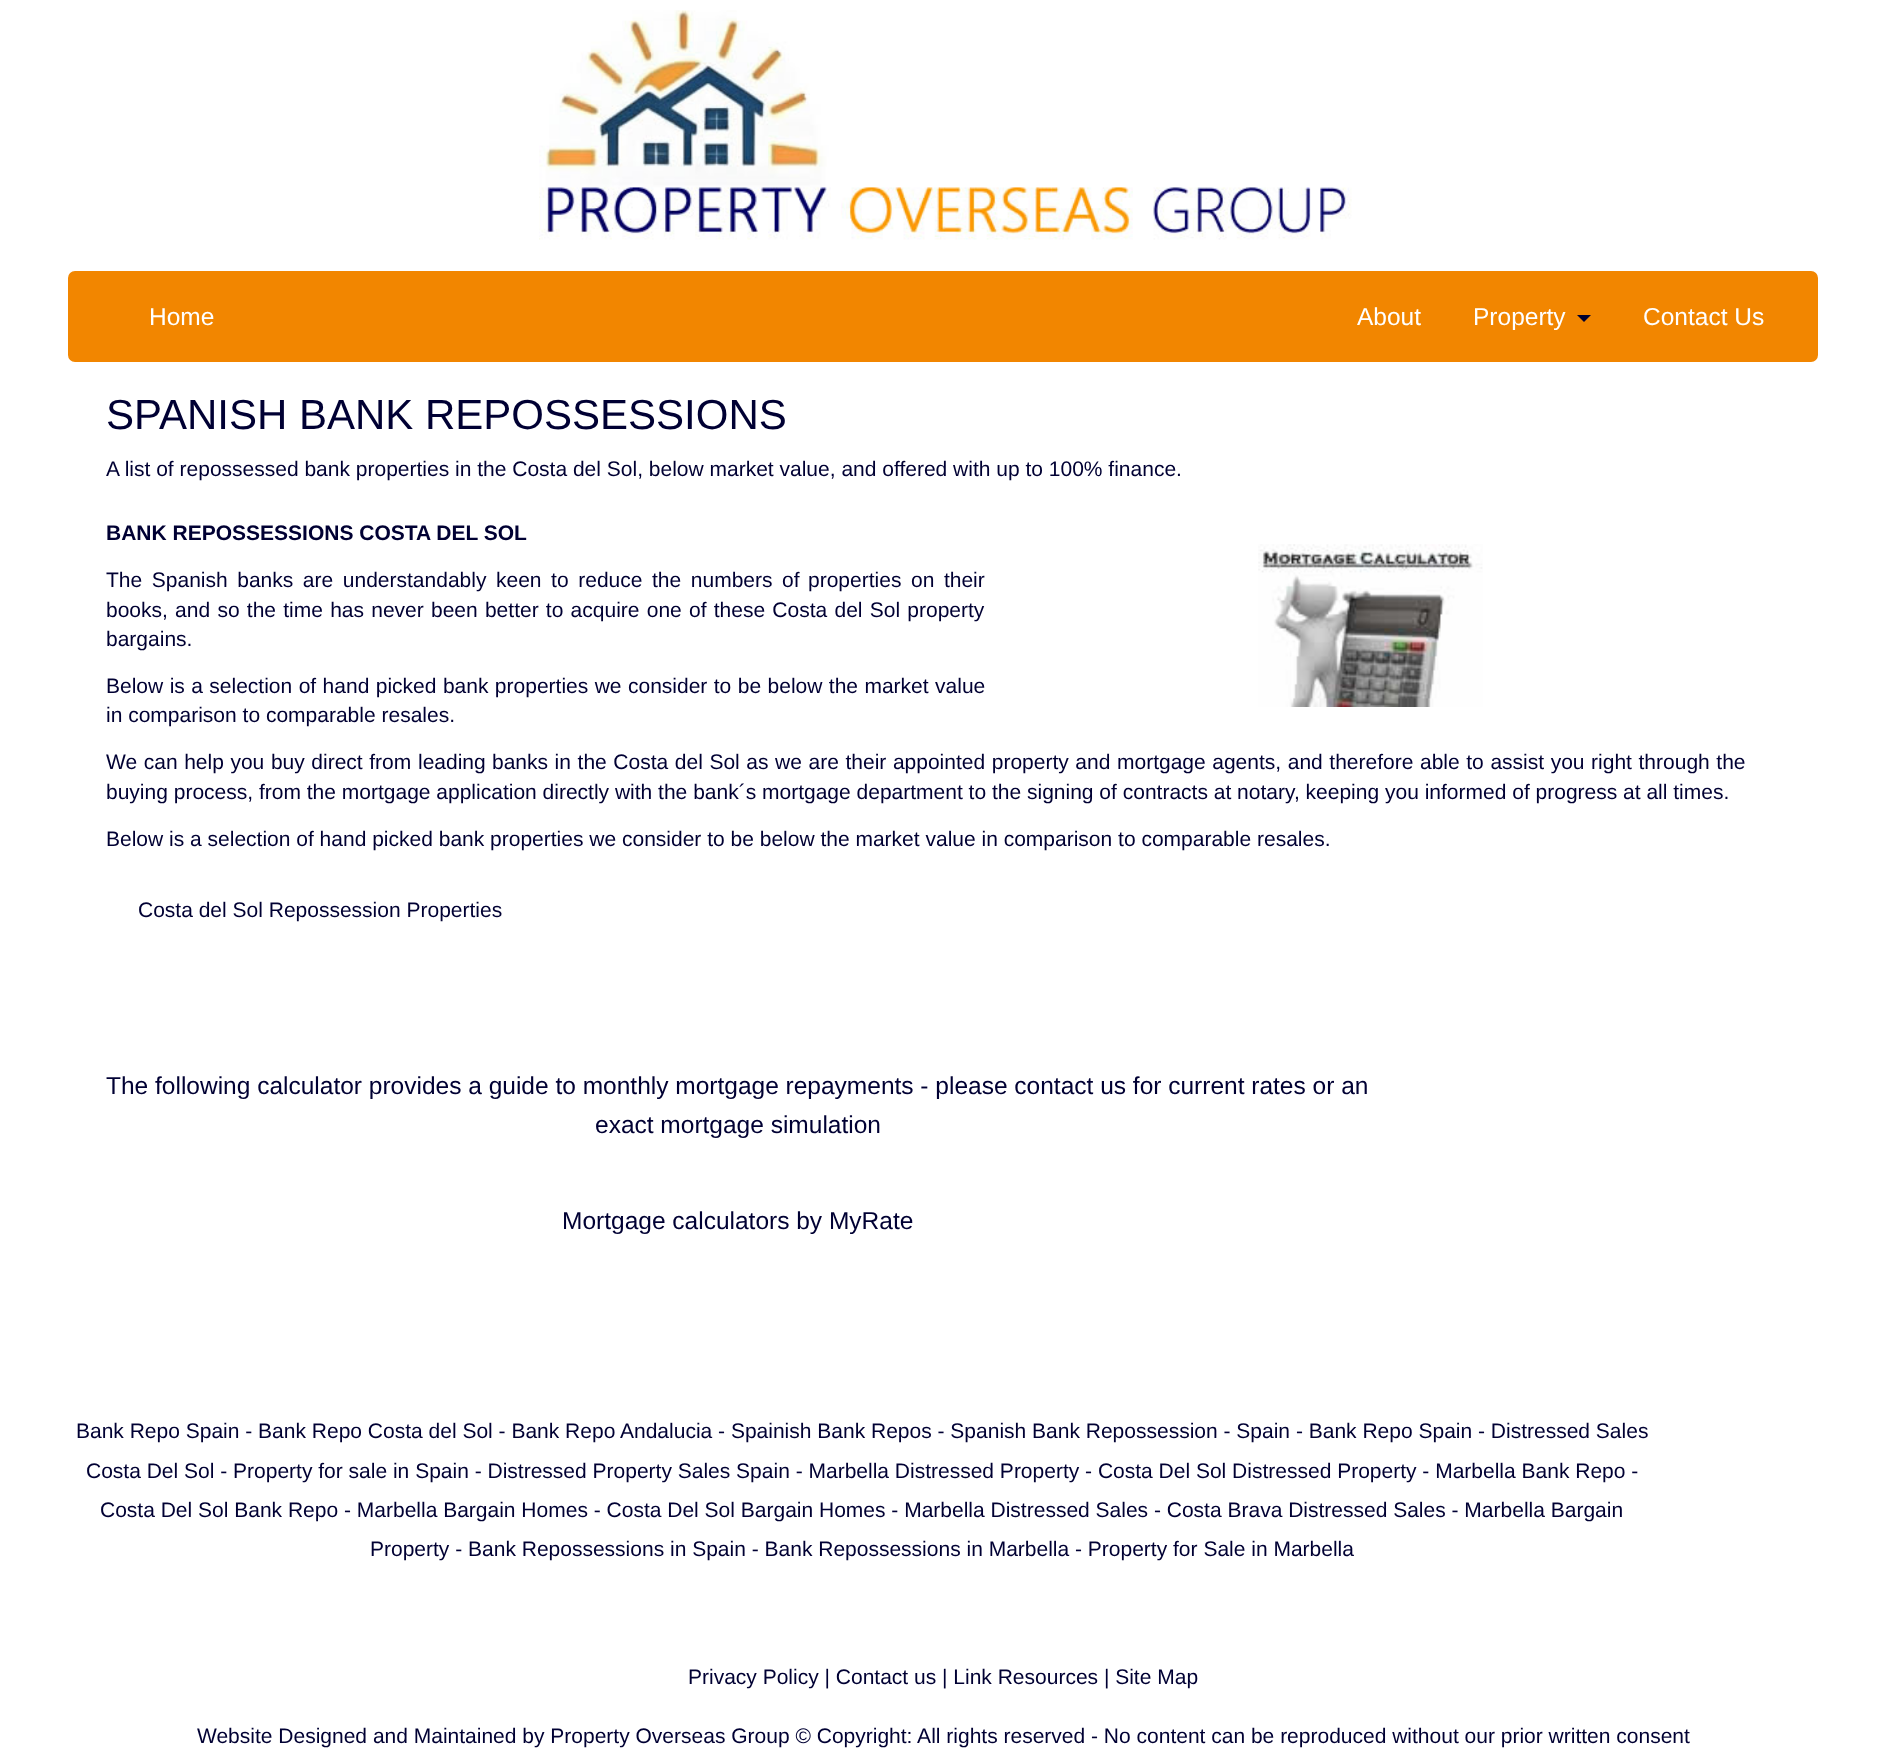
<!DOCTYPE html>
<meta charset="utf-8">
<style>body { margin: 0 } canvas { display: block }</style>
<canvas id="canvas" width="1885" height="1754"></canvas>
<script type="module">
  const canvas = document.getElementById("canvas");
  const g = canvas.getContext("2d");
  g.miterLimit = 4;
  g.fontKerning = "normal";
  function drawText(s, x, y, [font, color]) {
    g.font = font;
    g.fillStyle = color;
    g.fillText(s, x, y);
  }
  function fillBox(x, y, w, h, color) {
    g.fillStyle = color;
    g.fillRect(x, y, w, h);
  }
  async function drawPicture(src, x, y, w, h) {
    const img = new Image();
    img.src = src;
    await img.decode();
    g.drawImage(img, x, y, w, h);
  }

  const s1 = ["24.5px Liberation Sans", "#FFFFFF"];
  const s2 = ["42px Liberation Sans", "#000033"];
  const s3 = ["21px Liberation Sans", "#000033"];
  const s4 = ["bold 21px Liberation Sans", "#000033"];
  const s5 = ["24.5px Liberation Sans", "#000033"];

  fillBox(0, 0, 1885, 1754, "#FFFFFF");
  await drawPicture("pic1.png", 539, 10, 813, 230);
  g.fillStyle = "#F28600";
  g.beginPath();
  g.roundRect(69, 272, 1748, 89, 6);
  g.fill();
  g.strokeStyle = "#F28600";
  g.lineWidth = 2;
  g.stroke();
  drawText("Home", 149, 325, s1);
  drawText("About", 1357, 325, s1);
  drawText("Property", 1473, 325, s1);
  g.fillStyle = "#000030";
  g.beginPath();
  g.moveTo(1577, 315);
  g.lineTo(1591, 315);
  g.lineTo(1584, 322);
  g.closePath();
  g.fill();
  drawText("Contact Us", 1643, 325, s1);
  drawText("SPANISH BANK REPOSSESSIONS", 106, 429, s2);
  drawText("A list of repossessed bank properties in the Costa del Sol, below market value, and offered with up to 100% finance.", 106, 476, s3);
  drawText("BANK REPOSSESSIONS COSTA DEL SOL", 106, 540, s4);
  g.wordSpacing = "3.75px";
  drawText("The Spanish banks are understandably keen to reduce the numbers of", 106, 587, s3);
  drawText("properties on their", 808, 587, s3);
  g.wordSpacing = "1.4px";
  drawText("books, and so the time has never been better to acquire one of these Costa del Sol property", 106, 617, s3);
  g.wordSpacing = "0px";
  drawText("bargains.", 106, 646, s3);
  g.wordSpacing = "0.6px";
  drawText("Below is a selection of hand picked bank properties we consider to be below the market value", 106, 693, s3);
  g.wordSpacing = "0px";
  drawText("in comparison to comparable resales.", 106, 722, s3);
  await drawPicture("pic2.png", 1258, 544, 225, 163);
  g.wordSpacing = "0.75px";
  drawText("We can help you buy direct from", 106, 769, s3);
  g.wordSpacing = "0px";
  drawText("leading", 418, 769, s3);
  g.wordSpacing = "0.75px";
  drawText("banks in the Costa del Sol as we are their appointed property and mortgage agents, and therefore able to assist you right through the", 492, 769, s3);
  g.wordSpacing = "0px";
  drawText("buying process, from the mortgage application directly with the bank´s mortgage department to the signing of contracts at notary, keeping you informed of progress at all times.", 106, 799, s3);
  drawText("Below is a selection of hand picked bank properties we consider to be below the market value in comparison to comparable resales.", 106, 846, s3);
  drawText("Costa del Sol Repossession Properties", 138, 917, s3);
  drawText("The following calculator provides a guide to monthly mortgage repayments - please contact us for current rates or an", 106, 1094, s5);
  drawText("exact mortgage simulation", 595, 1133, s5);
  drawText("Mortgage calculators by MyRate", 562, 1229, s5);
  drawText("Bank Repo Spain - Bank Repo Costa del Sol - Bank Repo Andalucia - Spainish Bank Repos - Spanish Bank Repossession - Spain - Bank Repo Spain - Distressed Sales", 76, 1438, s3);
  drawText("Costa Del Sol - Property for sale in Spain - Distressed Property Sales Spain - Marbella Distressed Property - Costa Del Sol Distressed Property - Marbella Bank Repo -", 86, 1478, s3);
  drawText("Costa Del Sol Bank Repo - Marbella Bargain Homes - Costa Del Sol Bargain Homes - Marbella Distressed Sales - Costa Brava Distressed Sales - Marbella Bargain", 100, 1517, s3);
  drawText("Property - Bank Repossessions in Spain - Bank Repossessions in Marbella - Property for Sale in Marbella", 370, 1556, s3);
  drawText("Privacy Policy | Contact us | Link Resources | Site Map", 688, 1684, s3);
  drawText("Website Designed and Maintained by Property Overseas Group © Copyright: All rights reserved - No content can be reproduced without our prior written consent", 197, 1743, s3);
</script>
